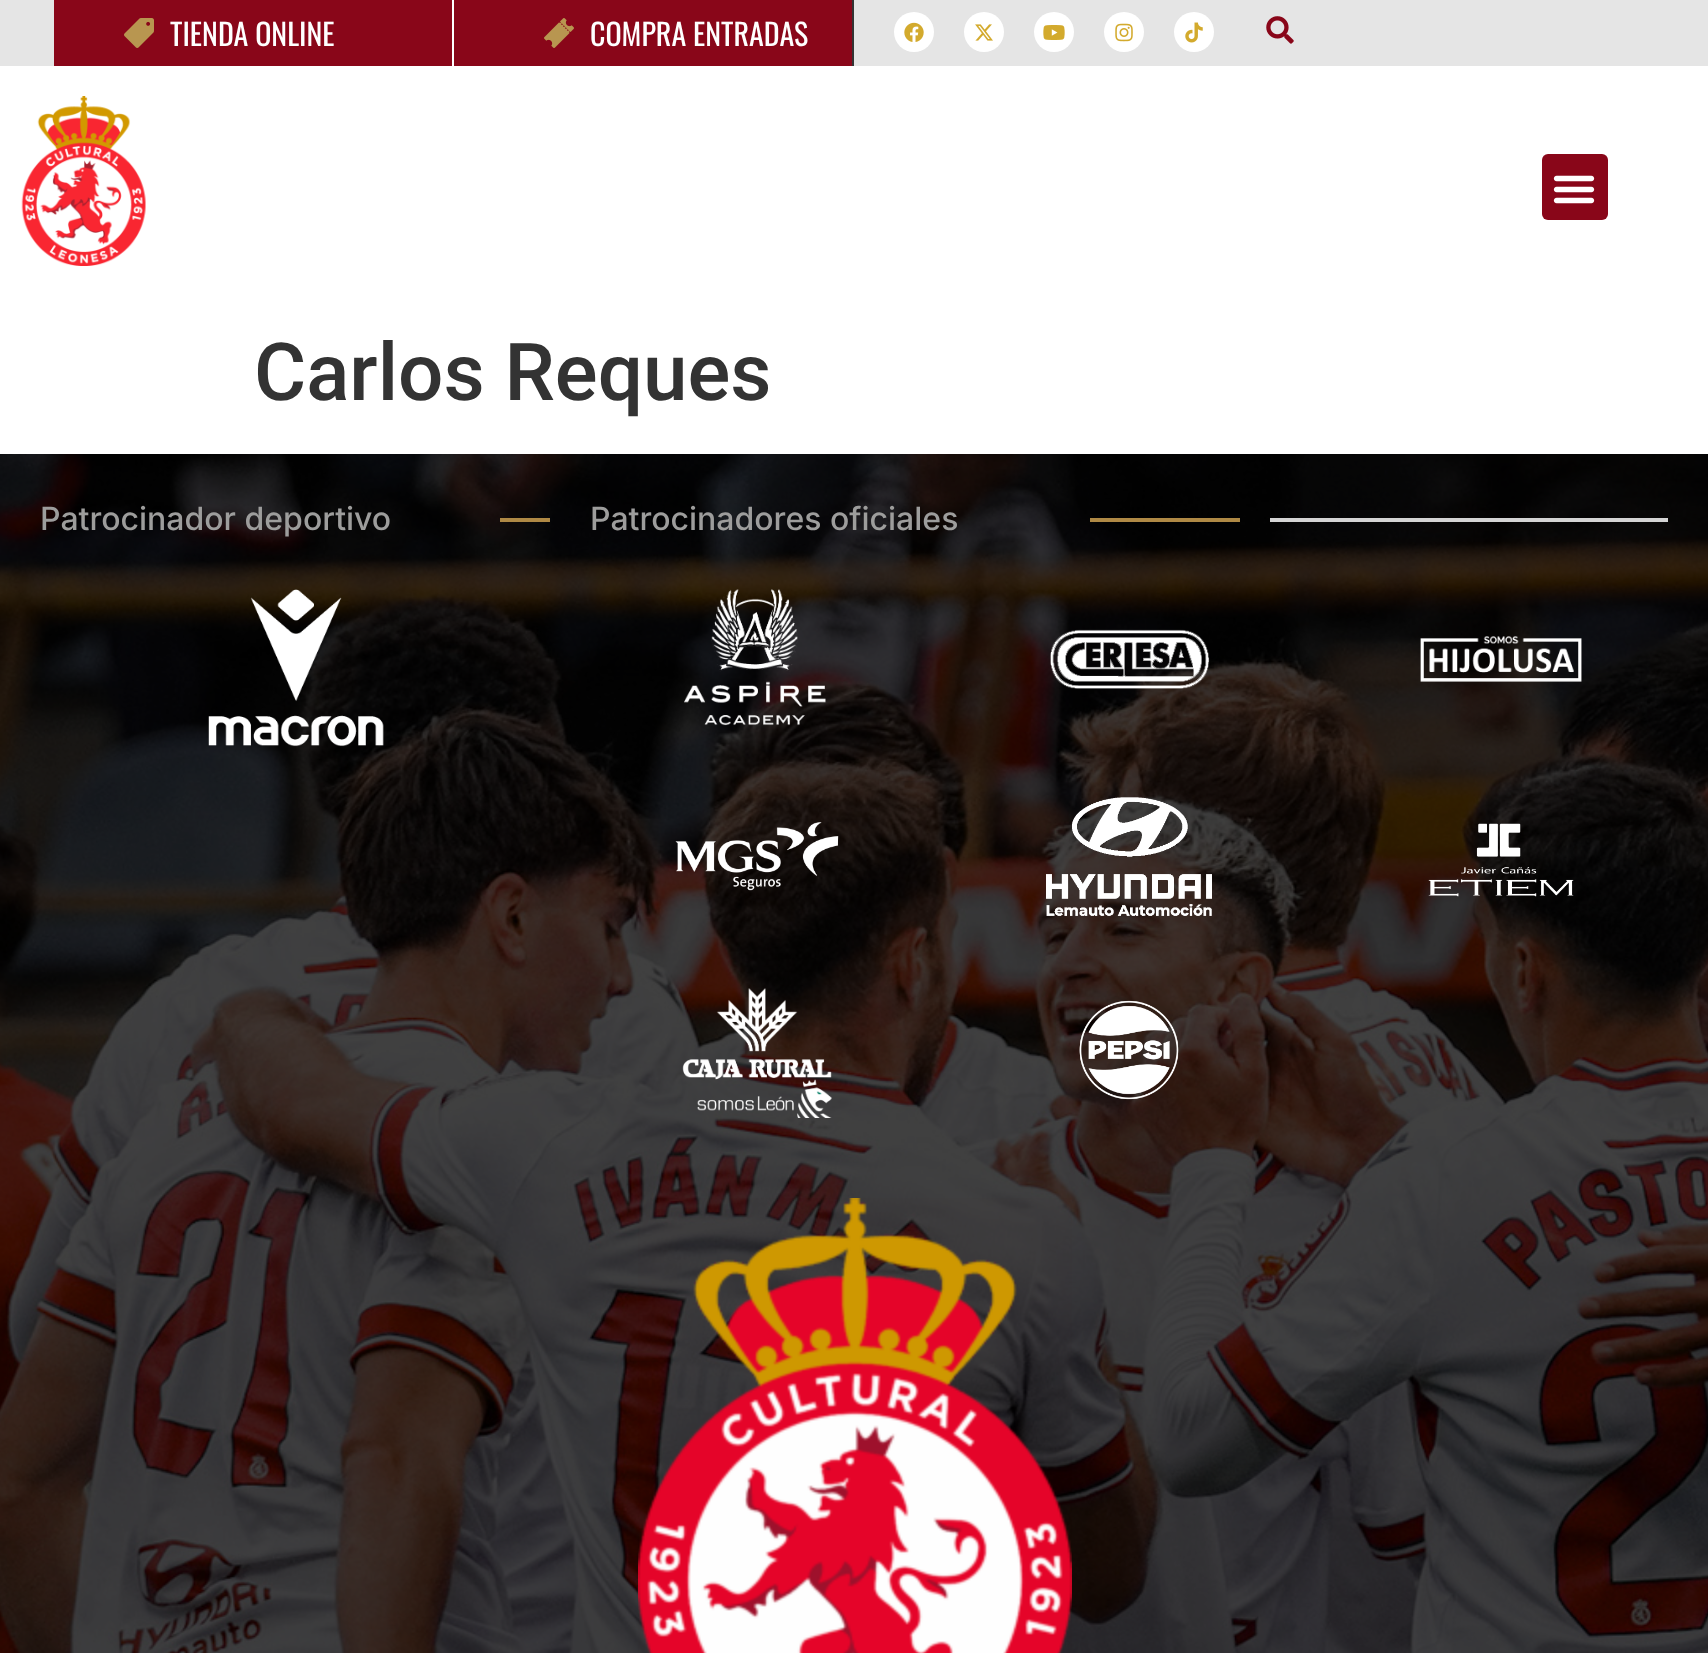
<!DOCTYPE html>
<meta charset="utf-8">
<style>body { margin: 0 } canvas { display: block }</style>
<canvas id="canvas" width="1708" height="1653"></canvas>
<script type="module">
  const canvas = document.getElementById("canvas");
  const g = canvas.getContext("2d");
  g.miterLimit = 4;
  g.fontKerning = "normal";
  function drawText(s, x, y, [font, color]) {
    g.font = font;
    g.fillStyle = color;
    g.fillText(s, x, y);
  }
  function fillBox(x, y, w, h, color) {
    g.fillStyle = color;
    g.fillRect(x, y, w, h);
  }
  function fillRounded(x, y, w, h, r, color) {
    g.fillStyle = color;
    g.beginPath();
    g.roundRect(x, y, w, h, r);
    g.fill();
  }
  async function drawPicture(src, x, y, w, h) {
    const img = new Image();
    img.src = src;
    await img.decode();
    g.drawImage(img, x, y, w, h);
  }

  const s1 = ["30px Oswald", "#FFFFFF"];
  const s2 = ["500 80px Roboto", "#333333"];
  const s3 = ["500 32px Inter", "#9D9D9C"];

  fillBox(0, 0, 1708, 1653, "#FFFFFF");
  fillBox(0, 0, 1708, 66, "#E5E5E5");
  fillBox(54, 0, 398, 66, "#890619");
  fillBox(452, 0, 2, 66, "#FFFFFF");
  await drawPicture("pic1.png", 124, 18, 30, 30);
  drawText("TIENDA ONLINE", 170, 46, s1);
  fillBox(454, 0, 398, 66, "#890619");
  fillBox(852, 0, 2, 66, "#333333");
  await drawPicture("pic2.png", 544, 18, 30, 30);
  drawText("COMPRA ENTRADAS", 590, 46, s1);
  g.beginPath();
  g.arc(914, 32, 20, 0, Math.PI * 2);
  g.fill();
  await drawPicture("pic3.png", 904, 22, 20, 20);
  g.beginPath();
  g.arc(984, 32, 20, 0, Math.PI * 2);
  g.fill();
  await drawPicture("pic4.png", 975, 24, 18, 17);
  g.beginPath();
  g.arc(1054, 32, 20, 0, Math.PI * 2);
  g.fill();
  await drawPicture("pic5.png", 1043, 25, 22, 15);
  g.beginPath();
  g.arc(1124, 32, 20, 0, Math.PI * 2);
  g.fill();
  await drawPicture("pic6.png", 1115, 23, 18, 19);
  g.beginPath();
  g.arc(1194, 32, 20, 0, Math.PI * 2);
  g.fill();
  await drawPicture("pic7.png", 1185, 22, 18, 21);
  await drawPicture("pic8.png", 1266, 16, 28, 28);
  await drawPicture("pic9.png", 21, 96, 125, 170);
  fillRounded(1542, 154, 66, 66, 6, "#890619");
  await drawPicture("pic10.png", 1553, 175, 42, 29);
  drawText("Carlos Reques", 254, 400, s2);
  await drawPicture("pic11.png", 0, 454, 1708, 1199);
  drawText("Patrocinador deportivo", 40, 530, s3);
  fillBox(500, 518, 50, 4, "#AF8945");
  await drawPicture("pic12.png", 208, 589, 176, 158);
  drawText("Patrocinadores oficiales", 590, 530, s3);
  fillBox(1090, 518, 150, 4, "#AF8945");
  fillBox(1270, 518, 398, 4, "#D4D4D4");
  await drawPicture("pic13.png", 684, 589, 142, 137);
  await drawPicture("pic14.png", 1050, 629, 160, 60);
  await drawPicture("pic15.png", 1420, 636, 162, 46);
  await drawPicture("pic16.png", 675, 822, 164, 69);
  await drawPicture("pic17.png", 1046, 797, 166, 119);
  await drawPicture("pic18.png", 1428, 823, 146, 74);
  await drawPicture("pic19.png", 682, 988, 150, 130);
  await drawPicture("pic20.png", 1079, 1000, 100, 100);
  await drawPicture("pic21.png", 638, 1198, 434, 455);
</script>
